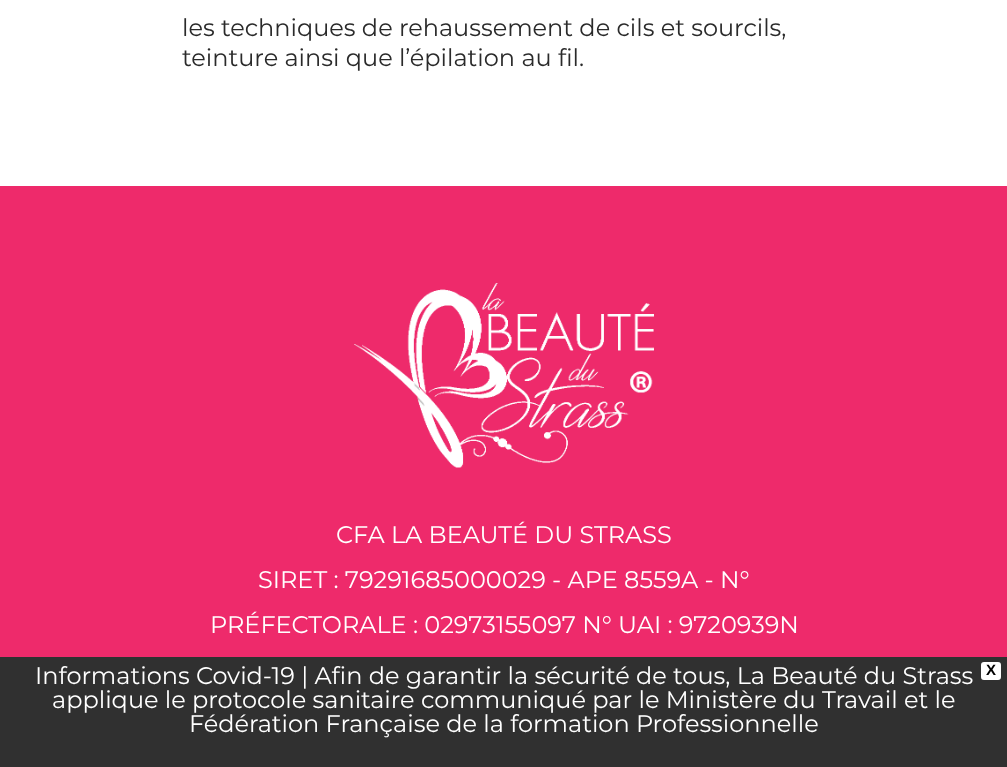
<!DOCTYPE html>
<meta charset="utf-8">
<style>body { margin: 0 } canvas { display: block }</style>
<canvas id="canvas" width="1007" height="767"></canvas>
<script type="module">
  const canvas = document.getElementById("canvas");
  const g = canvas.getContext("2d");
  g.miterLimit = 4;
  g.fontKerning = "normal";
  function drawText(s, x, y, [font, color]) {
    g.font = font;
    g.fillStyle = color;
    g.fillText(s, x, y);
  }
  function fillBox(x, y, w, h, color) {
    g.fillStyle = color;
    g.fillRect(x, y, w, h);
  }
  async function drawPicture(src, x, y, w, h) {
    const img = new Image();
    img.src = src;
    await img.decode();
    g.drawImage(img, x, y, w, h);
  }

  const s1 = ["24px Montserrat", "#2A2A2A"];
  const s2 = ["24px Montserrat", "#FFFFFF"];
  const s3 = ["bold 15px Liberation Sans", "#000000"];

  fillBox(0, 0, 1007, 767, "#FFFFFF");
  drawText("les techniques de rehaussement de cils et sourcils,", 182, 36, s1);
  drawText("teinture ainsi que l’épilation au fil.", 182, 66, s1);
  fillBox(0, 186, 1007, 471, "#EE2A6B");
  await drawPicture("pic1.png", 354, 283, 300, 185);
  drawText("CFA LA BEAUTÉ DU STRASS", 336, 543, s2);
  drawText("SIRET : 79291685000029 - APE 8559A - N°", 258, 588, s2);
  drawText("PRÉFECTORALE : 02973155097 N° UAI : 9720939N", 210, 633, s2);
  fillBox(0, 657, 1007, 110, "#303030");
  drawText("Informations Covid-19 | Afin de garantir la sécurité de tous, La Beauté du Strass", 35, 684, s2);
  drawText("applique le protocole sanitaire communiqué par le Ministère du Travail et le", 52, 708, s2);
  drawText("Fédération Française de la formation Professionnelle", 189, 732, s2);
  g.beginPath();
  g.roundRect(982, 663, 18, 16, 2);
  g.fill();
  g.strokeStyle = "#FFFFFF";
  g.lineWidth = 2;
  g.stroke();
  drawText("X", 986, 675, s3);
</script>
